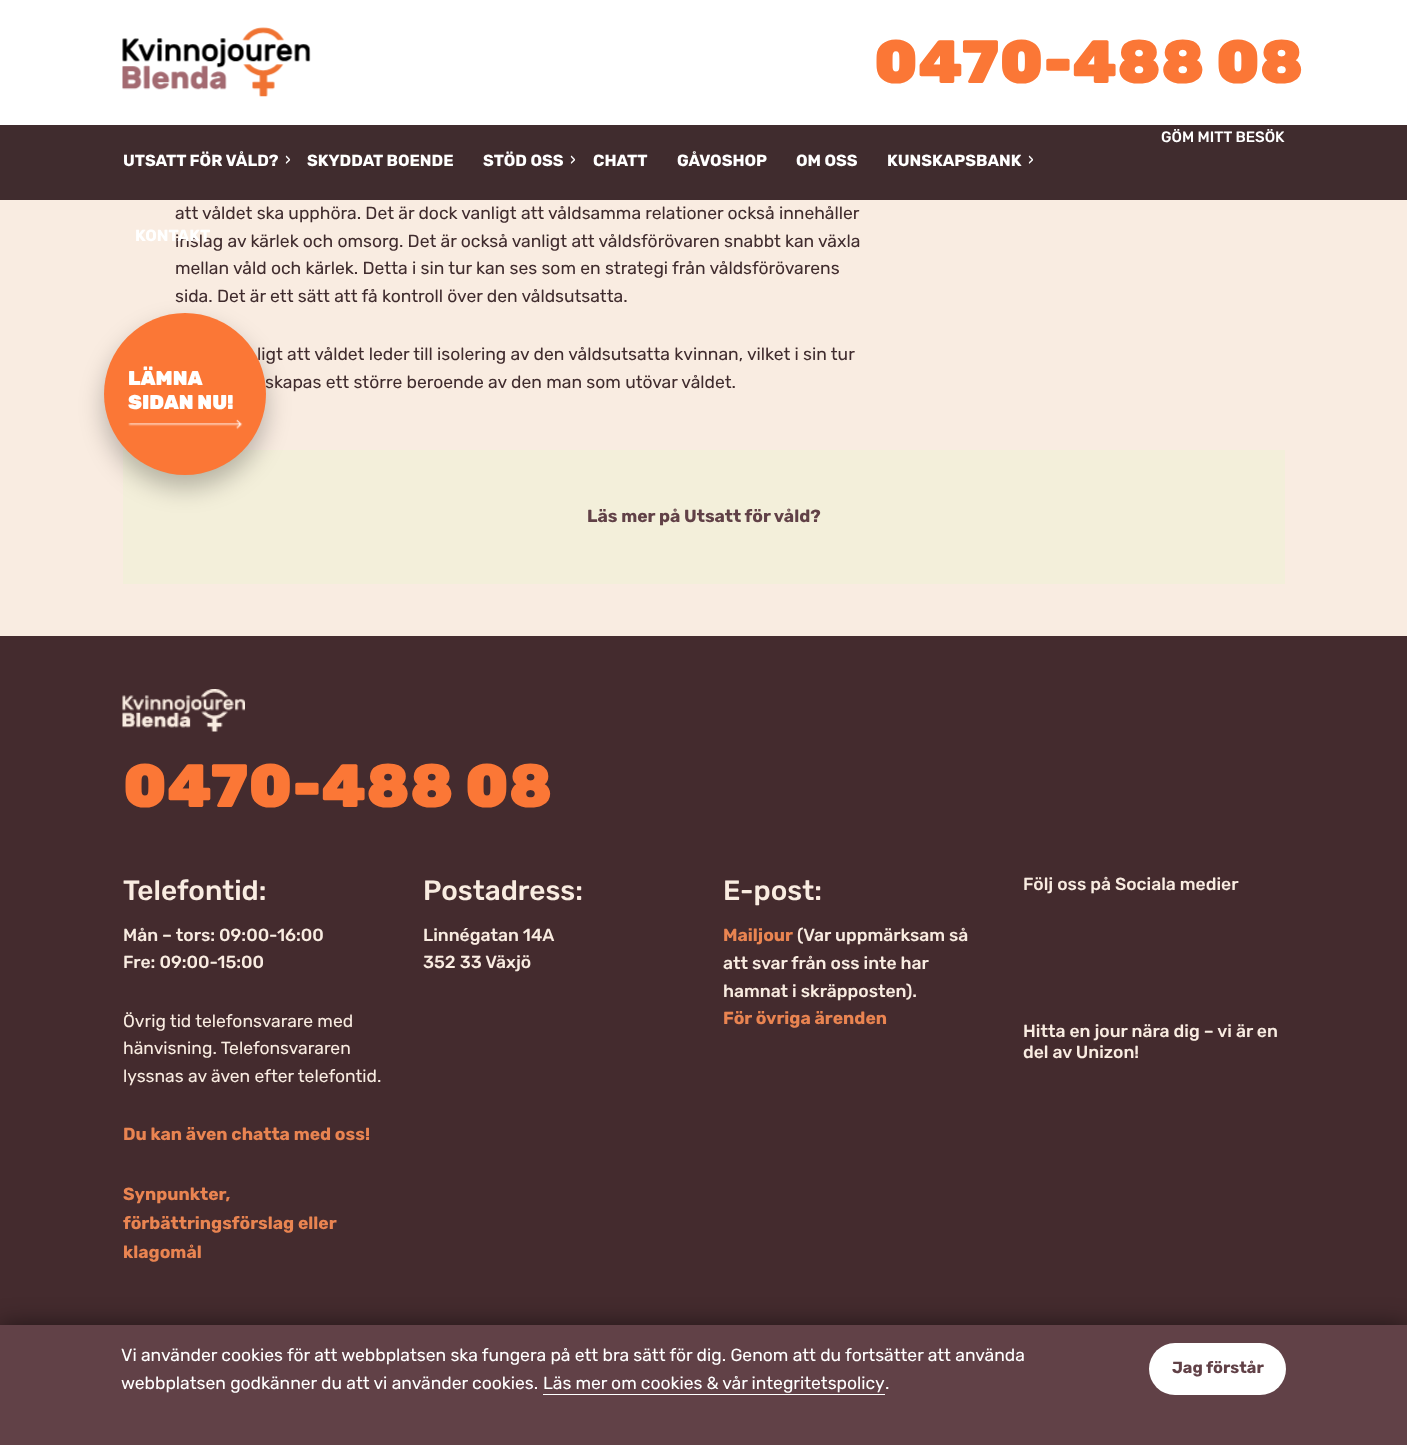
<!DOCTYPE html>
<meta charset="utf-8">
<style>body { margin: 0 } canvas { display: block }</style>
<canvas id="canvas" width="1407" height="1445"></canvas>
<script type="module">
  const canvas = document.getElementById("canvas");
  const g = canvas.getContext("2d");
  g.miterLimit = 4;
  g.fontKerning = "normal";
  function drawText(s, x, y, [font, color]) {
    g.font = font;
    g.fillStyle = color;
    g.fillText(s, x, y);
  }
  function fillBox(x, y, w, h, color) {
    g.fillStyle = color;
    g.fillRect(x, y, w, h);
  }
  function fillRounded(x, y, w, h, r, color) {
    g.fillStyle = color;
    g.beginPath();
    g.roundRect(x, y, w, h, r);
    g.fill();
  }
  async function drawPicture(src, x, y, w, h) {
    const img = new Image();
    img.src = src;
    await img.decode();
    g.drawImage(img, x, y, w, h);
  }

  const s1 = ["900 61.25px Rubik", "#FB7736"];
  const s2 = ["17.5px Rubik", "#402C2E"];
  const s3 = ["900 20px Rubik", "#FFFFFF"];
  const s4 = ["500 15px Rubik", "#FFFFFF"];
  const s5 = ["bold 16.25px Rubik", "#FFFFFF"];
  const s6 = ["16.25px Rubik", "#FFFFFF"];
  const s7 = ["bold 17.5px Rubik", "#614147"];
  const s8 = ["500 28px Rubik", "#F9ECE1"];
  const s9 = ["500 17.5px Rubik", "#F9ECE1"];
  const s10 = ["17.5px Rubik", "#F9ECE1"];
  const s11 = ["bold 17.5px Rubik", "#E98451"];
  const s12 = ["17.5px Rubik", "#FFFFFF"];
  const s13 = ["bold 16.25px Rubik", "#614147"];

  fillBox(0, 0, 1407, 1445, "#F9ECE1");
  fillBox(0, 0, 1407, 125, "#FFFFFF");
  await drawPicture("pic1.png", 122, 27, 189, 70);
  drawText("0470-488 08", 874, 83, s1);
  fillBox(123, 450, 1162, 134, "#F3EFDA");
  g.fillStyle = "rgba(0, 0, 0, 0.25)";
  g.filter = "blur(12.5px)";
  g.beginPath();
  g.roundRect(104, 325, 162, 163, 81);
  g.fill();
  g.filter = "none";
  drawText("ligt att våldet leder till isolering av den våldsutsatta kvinnan, vilket i sin tur", 257, 360, s2);
  drawText("skapas ett större beroende av den man som utövar våldet.", 265, 388, s2);
  g.fillStyle = "#FB7736";
  g.beginPath();
  g.arc(185, 394, 81, 0, Math.PI * 2);
  g.fill();
  drawText("LÄMNA", 128, 385, s3);
  drawText("SIDAN NU!", 128, 409, s3);
  await drawPicture("pic2.png", 128, 419, 115, 11);
  fillBox(0, 125, 1407, 75, "#402C2E");
  drawText("GÖM MITT BESÖK", 1161, 142, s4);
  drawText("UTSATT FÖR VÅLD?", 123, 166, s5);
  drawText("›", 285, 165, s6);
  drawText("SKYDDAT BOENDE", 307, 166, s5);
  drawText("STÖD OSS", 483, 166, s5);
  drawText("›", 570, 165, s6);
  drawText("CHATT", 593, 166, s5);
  drawText("GÅVOSHOP", 677, 166, s5);
  drawText("OM OSS", 796, 166, s5);
  drawText("KUNSKAPSBANK", 887, 166, s5);
  drawText("›", 1028, 165, s6);
  drawText("inslag av kärlek och omsorg. Det är också vanligt att våldsförövaren snabbt kan växla", 175, 247, s2);
  drawText("KONTAKT", 135, 241, s5);
  drawText("att våldet ska upphöra. Det är dock vanligt att våldsamma relationer också innehåller", 175, 219, s2);
  drawText("mellan våld och kärlek. Detta i sin tur kan ses som en strategi från våldsförövarens", 175, 274, s2);
  drawText("sida. Det är ett sätt att få kontroll över den våldsutsatta.", 175, 302, s2);
  drawText("Läs mer på Utsatt för våld?", 587, 522, s7);
  fillBox(0, 636, 1407, 689, "#442B2E");
  await drawPicture("pic3.png", 122, 689, 123, 43);
  drawText("0470-488 08", 123, 807, s1);
  drawText("Telefontid:", 123, 900, s8);
  drawText("Mån – tors: 09:00-16:00", 123, 941, s9);
  drawText("Fre: 09:00-15:00", 123, 968, s9);
  drawText("Övrig tid telefonsvarare med", 123, 1027, s10);
  drawText("hänvisning. Telefonsvararen", 123, 1054, s10);
  drawText("lyssnas av även efter telefontid.", 123, 1082, s10);
  drawText("Du kan även chatta med oss!", 123, 1140, s11);
  drawText("Synpunkter,", 123, 1200, s11);
  drawText("förbättringsförslag eller", 123, 1229, s11);
  drawText("klagomål", 123, 1258, s11);
  drawText("Postadress:", 423, 900, s8);
  drawText("Linnégatan 14A", 423, 941, s9);
  drawText("352 33 Växjö", 423, 968, s9);
  drawText("E-post:", 723, 900, s8);
  drawText("Mailjour", 723, 941, s11);
  drawText("(Var uppmärksam så", 797, 941, s9);
  drawText("att svar från oss inte har", 723, 969, s9);
  drawText("hamnat i skräpposten).", 723, 997, s9);
  drawText("För övriga ärenden", 723, 1024, s11);
  drawText("Följ oss på Sociala medier", 1023, 890, s9);
  drawText("Hitta en jour nära dig – vi är en", 1023, 1037, s9);
  drawText("del av Unizon!", 1023, 1058, s9);
  g.fillStyle = "rgba(0, 0, 0, 0.5)";
  g.filter = "blur(12.5px)";
  g.beginPath();
  g.rect(0, 1325, 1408, 120);
  g.fill();
  g.filter = "none";
  fillBox(0, 1325, 1407, 120, "#614147");
  drawText("Vi använder cookies för att webbplatsen ska fungera på ett bra sätt för dig. Genom att du fortsätter att använda", 121, 1361, s12);
  drawText("webbplatsen godkänner du att vi använder cookies.", 121, 1389, s12);
  g.wordSpacing = "-0.25px";
  drawText("Läs mer om cookies & vår integritetspolicy", 543, 1389, s12);
  fillBox(543, 1394, 342, 1, "#FFFFFF");
  g.wordSpacing = "0px";
  drawText(".", 885, 1389, s12);
  fillRounded(1149, 1343, 137, 52, 26, "#FFFFFF");
  drawText("Jag förstår", 1172, 1373, s13);
</script>
